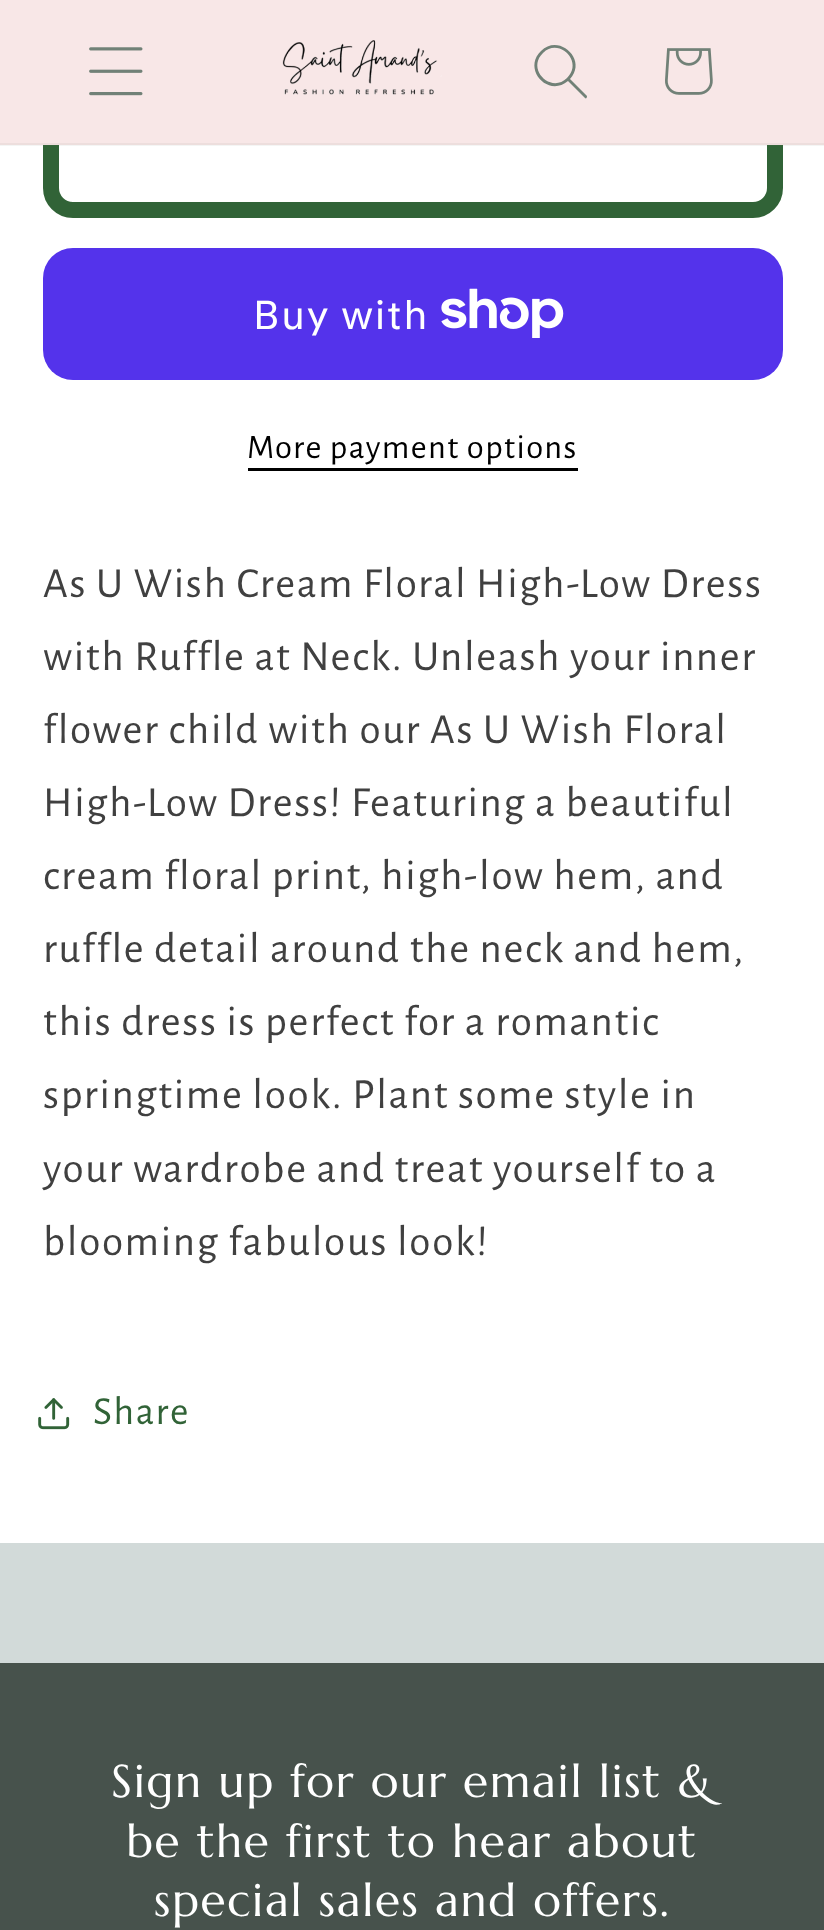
<!DOCTYPE html>
<meta charset="utf-8">
<style>body { margin: 0 } canvas { display: block }</style>
<canvas id="canvas" width="824" height="1930"></canvas>
<script type="module">
  const canvas = document.getElementById("canvas");
  const g = canvas.getContext("2d");
  g.miterLimit = 4;
  g.fontKerning = "normal";
  function drawText(s, x, y, [font, color]) {
    g.font = font;
    g.fillStyle = color;
    g.fillText(s, x, y);
  }
  function fillBox(x, y, w, h, color) {
    g.fillStyle = color;
    g.fillRect(x, y, w, h);
  }
  function fillRounded(x, y, w, h, r, color) {
    g.fillStyle = color;
    g.beginPath();
    g.roundRect(x, y, w, h, r);
    g.fill();
  }
  async function drawPicture(src, x, y, w, h) {
    const img = new Image();
    img.src = src;
    await img.decode();
    g.drawImage(img, x, y, w, h);
  }

  const s1 = ["40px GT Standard", "#FFFFFF"];
  const s2 = ["34.5px Alegreya Sans", "#000000"];
  const s3 = ["43.1px Alegreya Sans", "#404040"];
  const s4 = ["40px Alegreya Sans", "#316337"];
  const s5 = ["46px Marcellus", "#FFFFFF"];

  fillBox(0, 0, 824, 1930, "#D2DAD9");
  fillBox(0, 145, 824, 1398, "#FFFFFF");
  g.beginPath();
  g.roundRect(51, 68, 724, 142, 22);
  g.strokeStyle = "#316337";
  g.lineWidth = 16;
  g.stroke();
  fillBox(0, 0, 824, 145, "#F8E7E7");
  fillBox(0, 143, 824, 3, "rgba(113, 129, 119, 0.08)");
  await drawPicture("pic1.png", 89, 47, 54, 49);
  await drawPicture("pic2.png", 282, 40, 160, 55);
  g.fillStyle = "#718177";
  g.beginPath();
  g.moveTo(567, 78);
  g.bezierCurveTo(551, 94, 526, 69, 543, 53);
  g.bezierCurveTo(559, 37, 584, 62, 567, 78);
  g.moveTo(568, 81);
  g.bezierCurveTo(548, 98, 522, 69, 541, 51);
  g.bezierCurveTo(559, 33, 588, 60, 570, 79);
  g.lineTo(587, 96);
  g.bezierCurveTo(587, 98, 586, 99, 585, 98);
  g.closePath();
  g.fill("evenodd");
  await drawPicture("pic3.png", 665, 48, 48, 47);
  fillRounded(43, 248, 740, 132, 30, "#5433EB");
  g.letterSpacing = "1.7px";
  drawText("Buy with", 253, 329, s1);
  await drawPicture("pic4.png", 441, 288, 123, 50);
  g.letterSpacing = "1.4px";
  drawText("More payment options", 247, 458, s2);
  fillBox(248, 468, 330, 3, "#000000");
  g.letterSpacing = "1.7px";
  drawText("As U Wish Cream Floral High-Low Dress", 43, 597, s3);
  drawText("with Ruffle at Neck. Unleash your inner", 43, 670, s3);
  drawText("flower child with our As U Wish Floral", 43, 743, s3);
  drawText("High-Low Dress! Featuring a beautiful", 43, 816, s3);
  drawText("cream floral print, high-low hem, and", 43, 889, s3);
  drawText("ruffle detail around the neck and hem,", 43, 962, s3);
  drawText("this dress is perfect for a romantic", 43, 1035, s3);
  drawText("springtime look. Plant some style in", 43, 1108, s3);
  drawText("your wardrobe and treat yourself to a", 43, 1182, s3);
  drawText("blooming fabulous look!", 43, 1255, s3);
  await drawPicture("pic5.png", 38, 1398, 32, 32);
  drawText("Share", 93, 1424, s4);
  fillBox(0, 1663, 824, 267, "#47524C");
  drawText("Sign up for our email list &", 111, 1797, s5);
  drawText("be the first to hear about", 126, 1857, s5);
  drawText("special sales and offers.", 154, 1916, s5);
</script>
